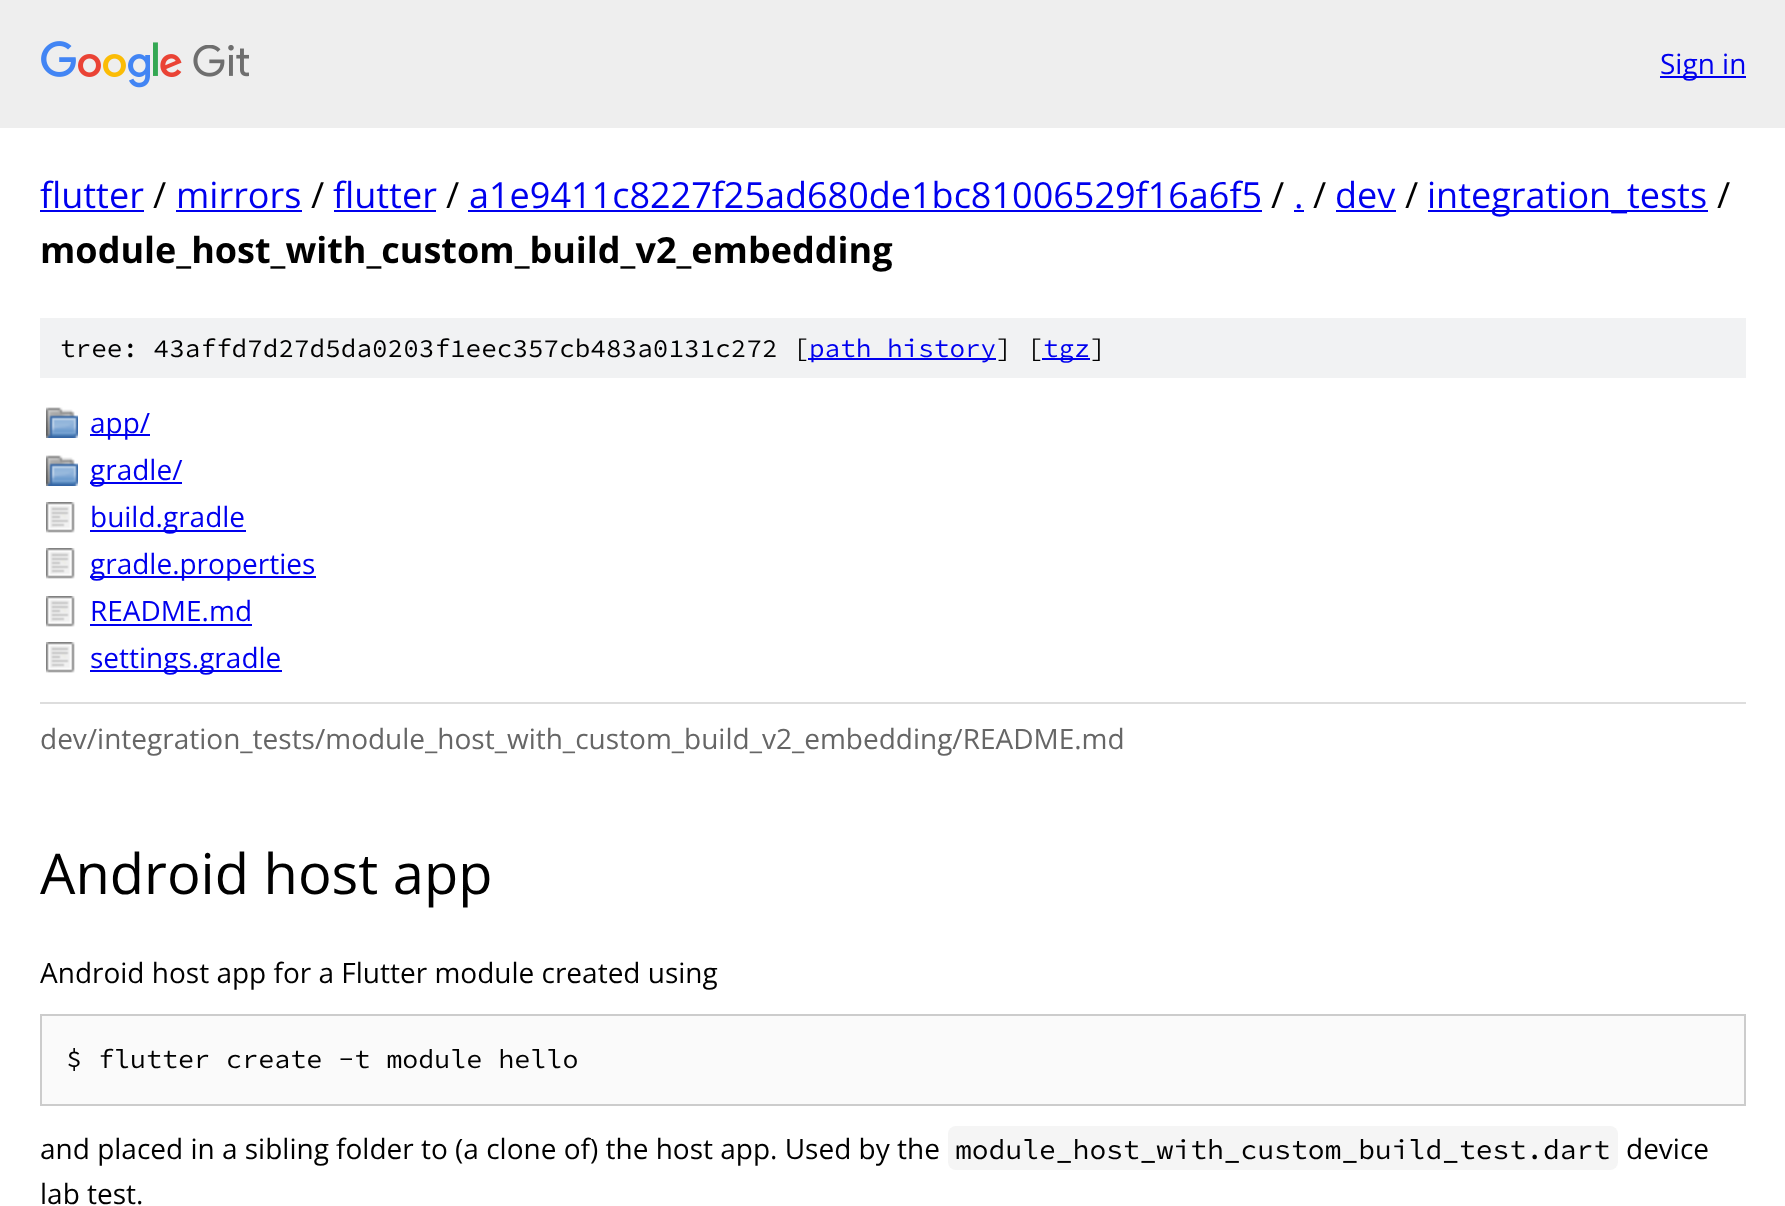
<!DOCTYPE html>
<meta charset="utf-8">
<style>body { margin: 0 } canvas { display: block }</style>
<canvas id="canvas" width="1785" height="1206"></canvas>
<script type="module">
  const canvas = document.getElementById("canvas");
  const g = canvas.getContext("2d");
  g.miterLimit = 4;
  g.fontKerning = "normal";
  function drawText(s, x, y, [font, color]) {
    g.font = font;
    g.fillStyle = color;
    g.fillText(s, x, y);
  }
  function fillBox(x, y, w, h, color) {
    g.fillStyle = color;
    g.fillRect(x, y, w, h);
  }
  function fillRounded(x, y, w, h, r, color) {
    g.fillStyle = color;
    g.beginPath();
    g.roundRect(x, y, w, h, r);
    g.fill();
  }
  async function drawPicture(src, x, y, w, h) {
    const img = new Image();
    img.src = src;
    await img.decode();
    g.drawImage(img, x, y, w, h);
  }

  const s1 = ["28px Open Sans", "#0000EE"];
  const s2 = ["36px Open Sans", "#0000EE"];
  const s3 = ["36px Open Sans", "#000000"];
  const s4 = ["bold 36px Open Sans", "#000000"];
  const s5 = ["200 26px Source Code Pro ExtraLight", "#000000"];
  const s6 = ["200 26px Source Code Pro ExtraLight", "#0000EE"];
  const s7 = ["28px Open Sans", "#666666"];
  const s8 = ["56px Open Sans", "#000000"];
  const s9 = ["28px Open Sans", "#000000"];
  const s10 = ["200 26.7px Source Code Pro ExtraLight", "#000000"];
  const s11 = ["200 28px Source Code Pro ExtraLight", "#000000"];

  fillBox(0, 0, 1785, 1206, "#FFFFFF");
  fillBox(0, 0, 1785, 128, "#EEEEEE");
  await drawPicture("pic1.png", 41, 41, 208, 47);
  fillBox(1660, 76, 86, 2, "#0000EE");
  drawText("Sign in", 1660, 74, s1);
  drawText("flutter", 40, 208, s2);
  fillBox(40, 210, 104, 2, "#0000EE");
  drawText("/", 153, 208, s3);
  drawText("mirrors", 176, 208, s2);
  fillBox(176, 210, 126, 2, "#0000EE");
  drawText("/", 311, 208, s3);
  drawText("flutter", 333, 208, s2);
  fillBox(334, 210, 102, 2, "#0000EE");
  drawText("/", 446, 208, s3);
  drawText("a1e9411c8227f25ad680de1bc81006529f16a6f5", 469, 208, s2);
  fillBox(468, 210, 794, 2, "#0000EE");
  drawText("/", 1271, 208, s3);
  drawText(".", 1294, 208, s2);
  fillBox(1294, 210, 10, 2, "#0000EE");
  drawText("/", 1313, 208, s3);
  drawText("dev", 1335, 208, s2);
  fillBox(1336, 210, 60, 2, "#0000EE");
  drawText("/", 1405, 208, s3);
  fillBox(1428, 210, 280, 2, "#0000EE");
  drawText("integration_tests", 1427, 208, s2);
  drawText("/", 1717, 208, s3);
  drawText("module_host_with_custom_build_v2_embedding", 40, 263, s4);
  fillBox(40, 318, 1706, 60, "#F1F2F3");
  drawText("tree: 43affd7d27d5da0203f1eec357cb483a0131c272 [", 60, 357, s5);
  fillBox(808, 358, 188, 2, "#0000EE");
  drawText("path history", 809, 357, s6);
  drawText("] [", 996, 357, s5);
  fillBox(1042, 358, 48, 2, "#0000EE");
  drawText("tgz", 1043, 357, s6);
  drawText("]", 1090, 357, s5);
  await drawPicture("pic2.png", 46, 407, 32, 31);
  fillBox(90, 434, 60, 2, "#0000EE");
  drawText("app/", 90, 433, s1);
  await drawPicture("pic2.png", 46, 455, 32, 31);
  fillBox(90, 482, 92, 2, "#0000EE");
  drawText("gradle/", 90, 480, s1);
  await drawPicture("pic3.png", 46, 502, 29, 31);
  fillBox(90, 530, 156, 2, "#0000EE");
  drawText("build.gradle", 90, 527, s1);
  await drawPicture("pic3.png", 46, 548, 29, 31);
  fillBox(90, 576, 226, 2, "#0000EE");
  drawText("gradle.properties", 90, 574, s1);
  await drawPicture("pic3.png", 46, 596, 29, 31);
  drawText("README.md", 90, 621, s1);
  fillBox(90, 624, 162, 2, "#0000EE");
  await drawPicture("pic3.png", 46, 642, 29, 31);
  fillBox(90, 670, 192, 2, "#0000EE");
  drawText("settings.gradle", 90, 668, s1);
  fillBox(40, 702, 1706, 2, "#DDDDDD");
  drawText("dev/integration_tests/module_host_with_custom_build_v2_embedding/README.md", 40, 749, s7);
  drawText("Android host app", 40, 894, s8);
  drawText("Android host app for a Flutter module created using", 40, 983, s9);
  g.fillStyle = "#FAFAFA";
  g.beginPath();
  g.rect(41, 1015, 1704, 90);
  g.fill();
  g.strokeStyle = "#CCCCCC";
  g.lineWidth = 2;
  g.stroke();
  drawText("$ flutter create -t module hello", 66, 1068, s10);
  drawText("and placed in a sibling folder to (a clone of) the host app. Used by the", 40, 1159, s9);
  fillRounded(948, 1126, 670, 44, 8, "#F5F5F5");
  drawText("module_host_with_custom_build_test.dart", 955, 1159, s11);
  drawText("device", 1626, 1159, s9);
  drawText("lab test.", 40, 1204, s9);
</script>
